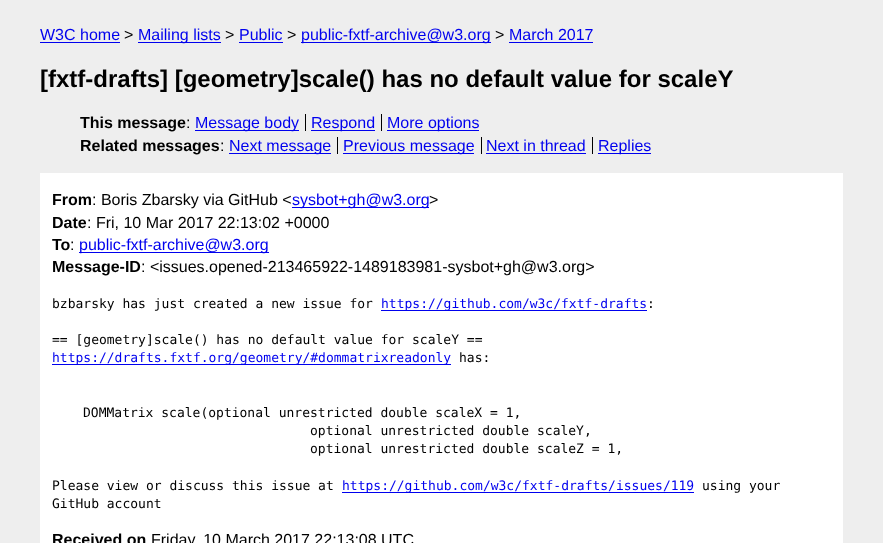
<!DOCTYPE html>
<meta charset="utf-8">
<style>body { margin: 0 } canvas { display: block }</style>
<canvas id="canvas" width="883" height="543"></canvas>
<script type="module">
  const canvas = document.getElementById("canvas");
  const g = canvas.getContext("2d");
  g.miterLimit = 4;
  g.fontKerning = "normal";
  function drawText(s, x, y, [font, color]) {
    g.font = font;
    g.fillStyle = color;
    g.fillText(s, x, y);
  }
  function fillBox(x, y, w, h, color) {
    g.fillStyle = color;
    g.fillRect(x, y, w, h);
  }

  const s1 = ["16px Liberation Sans", "#0000EE"];
  const s2 = ["16px Liberation Sans", "#000000"];
  const s3 = ["bold 24px Liberation Sans", "#000000"];
  const s4 = ["bold 16px Liberation Sans", "#000000"];
  const s5 = ["13px DejaVu Sans Mono", "#000000"];
  const s6 = ["13px DejaVu Sans Mono", "#0000EE"];

  fillBox(0, 0, 883, 543, "#EEEEEE");
  drawText("W3C home", 40, 40, s1);
  fillBox(40, 42, 80, 1, "#0000EE");
  drawText(">", 124, 40, s2);
  fillBox(138, 42, 83, 1, "#0000EE");
  drawText("Mailing lists", 138, 40, s1);
  drawText(">", 225, 40, s2);
  drawText("Public", 239, 40, s1);
  fillBox(239, 42, 44, 1, "#0000EE");
  drawText(">", 287, 40, s2);
  fillBox(301, 42, 190, 1, "#0000EE");
  drawText("public-fxtf-archive@w3.org", 301, 40, s1);
  drawText(">", 495, 40, s2);
  drawText("March 2017", 509, 40, s1);
  fillBox(509, 42, 84, 1, "#0000EE");
  drawText("[fxtf-drafts] [geometry]scale() has no default value for scaleY", 40, 87, s3);
  drawText("This message", 80, 128, s4);
  drawText(":", 186, 128, s2);
  fillBox(195, 130, 104, 1, "#0000EE");
  drawText("Message body", 195, 128, s1);
  fillBox(311, 130, 64, 1, "#0000EE");
  drawText("Respond", 311, 128, s1);
  fillBox(305, 114, 1, 17, "#000000");
  fillBox(387, 130, 92, 1, "#0000EE");
  drawText("More options", 387, 128, s1);
  fillBox(381, 114, 1, 17, "#000000");
  drawText("Related messages", 80, 151, s4);
  drawText(":", 220, 151, s2);
  fillBox(229, 153, 102, 1, "#0000EE");
  drawText("Next message", 229, 151, s1);
  fillBox(343, 153, 131, 1, "#0000EE");
  drawText("Previous message", 343, 151, s1);
  fillBox(337, 137, 1, 17, "#000000");
  drawText("Next in thread", 486, 151, s1);
  fillBox(481, 137, 1, 17, "#000000");
  fillBox(592, 137, 1, 17, "#000000");
  fillBox(486, 153, 100, 1, "#0000EE");
  fillBox(598, 153, 53, 1, "#0000EE");
  drawText("Replies", 598, 151, s1);
  fillBox(40, 173, 803, 370, "#FFFFFF");
  drawText("From", 52, 205, s4);
  drawText(": Boris Zbarsky via GitHub <", 92, 205, s2);
  fillBox(292, 207, 137, 1, "#0000EE");
  drawText("sysbot+gh@w3.org", 292, 205, s1);
  drawText(">", 429, 205, s2);
  drawText("Date", 52, 228, s4);
  drawText(": Fri, 10 Mar 2017 22:13:02 +0000", 87, 228, s2);
  drawText("To", 52, 250, s4);
  drawText(":", 70, 250, s2);
  fillBox(79, 252, 190, 1, "#0000EE");
  drawText("public-fxtf-archive@w3.org", 79, 250, s1);
  drawText("Message-ID", 52, 272, s4);
  drawText(": <issues.opened-213465922-1489183981-sysbot+gh@w3.org>", 141, 272, s2);
  drawText("bzbarsky has just created a new issue for", 52, 308, s5);
  fillBox(381, 310, 266, 1, "#0000EE");
  drawText("https://github.com/w3c/fxtf-drafts", 381, 308, s6);
  drawText(":", 647, 308, s5);
  drawText("== [geometry]scale() has no default value for scaleY ==", 52, 344, s5);
  fillBox(52, 364, 399, 1, "#0000EE");
  drawText("https://drafts.fxtf.org/geometry/#dommatrixreadonly", 52, 362, s6);
  drawText("has:", 459, 362, s5);
  drawText("DOMMatrix scale(optional unrestricted double scaleX = 1,", 83, 417, s5);
  drawText("optional unrestricted double scaleY,", 310, 435, s5);
  drawText("optional unrestricted double scaleZ = 1,", 310, 453, s5);
  drawText("Please view or discuss this issue at", 52, 490, s5);
  fillBox(342, 492, 352, 1, "#0000EE");
  drawText("https://github.com/w3c/fxtf-drafts/issues/119", 342, 490, s6);
  drawText("using your", 702, 490, s5);
  drawText("GitHub account", 52, 508, s5);
  drawText("Received on", 52, 545, s4);
  drawText("Friday, 10 March 2017 22:13:08 UTC", 151, 545, s2);
</script>
